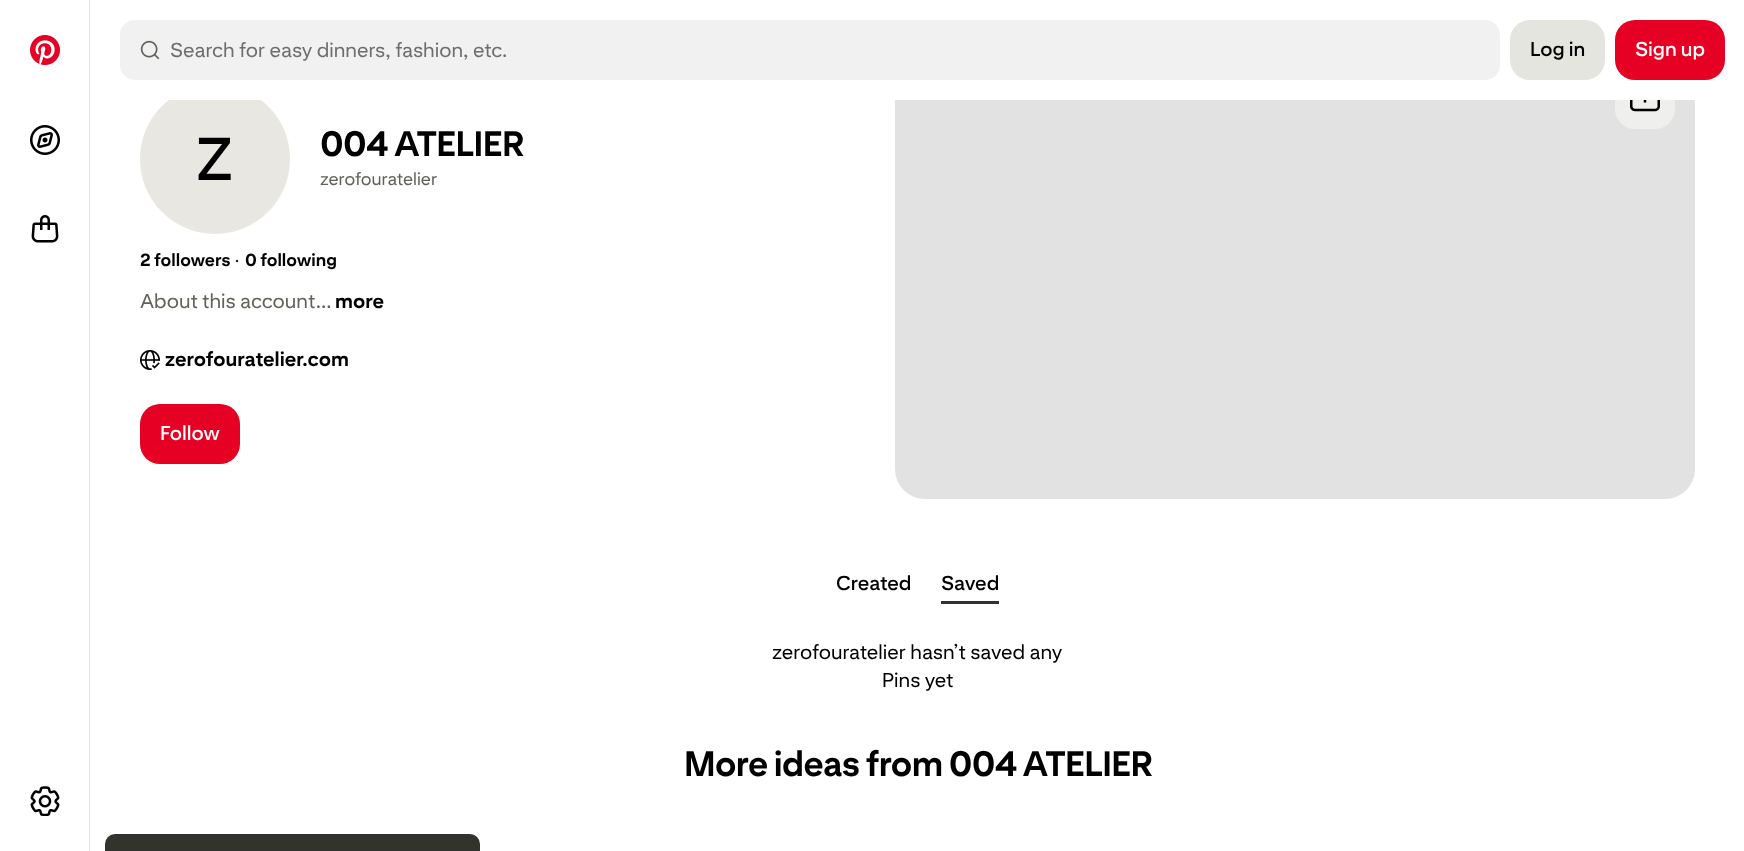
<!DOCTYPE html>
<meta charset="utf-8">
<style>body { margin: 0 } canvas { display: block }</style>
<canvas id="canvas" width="1744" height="851"></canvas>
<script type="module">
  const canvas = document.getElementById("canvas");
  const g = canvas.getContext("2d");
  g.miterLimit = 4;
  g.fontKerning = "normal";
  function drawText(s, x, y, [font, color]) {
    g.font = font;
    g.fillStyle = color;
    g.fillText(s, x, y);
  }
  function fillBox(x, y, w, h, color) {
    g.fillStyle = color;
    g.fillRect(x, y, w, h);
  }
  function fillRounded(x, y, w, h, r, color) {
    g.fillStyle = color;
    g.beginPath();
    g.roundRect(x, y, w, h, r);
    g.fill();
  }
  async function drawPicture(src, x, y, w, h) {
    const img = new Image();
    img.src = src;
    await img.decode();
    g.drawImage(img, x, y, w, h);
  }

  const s1 = ["20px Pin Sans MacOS", "#6E6E6E"];
  const s2 = ["500 20px Pin Sans MacOS", "#000000"];
  const s3 = ["500 20px Pin Sans MacOS", "#FFFFFF"];
  const s4 = ["500 60px Pin Sans MacOS", "#000000"];
  const s5 = ["bold 35px Pin Sans MacOS", "#000000"];
  const s6 = ["17.5px Pin Sans MacOS", "#62625B"];
  const s7 = ["bold 17.5px Pin Sans MacOS", "#000000"];
  const s8 = ["17.5px Pin Sans MacOS", "#000000"];
  const s9 = ["20px Pin Sans MacOS", "#62625B"];
  const s10 = ["bold 20px Pin Sans MacOS", "#000000"];
  const s11 = ["20px Pin Sans MacOS", "#000000"];

  fillBox(0, 0, 1744, 851, "#FFFFFF");
  fillBox(89, 0, 1, 851, "#E5E5E0");
  await drawPicture("pic1.png", 30, 35, 30, 30);
  await drawPicture("pic2.png", 30, 125, 30, 30);
  await drawPicture("pic3.png", 31, 215, 28, 28);
  await drawPicture("pic4.png", 30, 786, 30, 30);
  g.fillStyle = "#E8E7E1";
  g.beginPath();
  g.arc(215, 159, 75, 0, Math.PI * 2);
  g.fill();
  fillRounded(895, 49, 800, 450, 30, "#E2E2E2");
  fillRounded(1615, 69, 60, 60, 20, "#EFEFEE");
  fillBox(169, 49, 1526, 51, "#FFFFFF");
  fillRounded(120, 20, 1380, 60, 15, "#F1F1F1");
  await drawPicture("pic5.png", 140, 40, 20, 20);
  drawText("Search for easy dinners, fashion, etc.", 170, 57, s1);
  fillRounded(1510, 20, 95, 60, 20, "#E5E5E0");
  drawText("Log in", 1530, 56, s2);
  fillRounded(1615, 20, 110, 60, 20, "#E60023");
  drawText("Sign up", 1635, 56, s3);
  drawText("Z", 196, 180, s4);
  g.letterSpacing = "-0.6px";
  drawText("004 ATELIER", 320, 156, s5);
  g.letterSpacing = "0px";
  drawText("zerofouratelier", 320, 185, s6);
  drawText("2 followers", 140, 266, s7);
  drawText("·", 235, 266, s8);
  drawText("0 following", 245, 266, s7);
  drawText("About this account...", 140, 308, s9);
  drawText("more", 335, 308, s10);
  await drawPicture("pic6.png", 140, 350, 20, 20);
  drawText("zerofouratelier.com", 165, 366, s10);
  fillRounded(140, 404, 100, 60, 20, "#E60023");
  drawText("Follow", 160, 440, s3);
  await drawPicture("pic7.png", 1630, 100, 30, 12);
  drawText("Created", 836, 590, s2);
  drawText("Saved", 941, 590, s2);
  fillBox(941, 601, 58, 3, "#33332E");
  drawText("zerofouratelier hasn’t saved any", 772, 659, s11);
  drawText("Pins yet", 882, 687, s11);
  g.letterSpacing = "-0.6px";
  drawText("More ideas from 004 ATELIER", 684, 776, s5);
  fillRounded(105, 834, 375, 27, 10, "#33332E");
</script>
